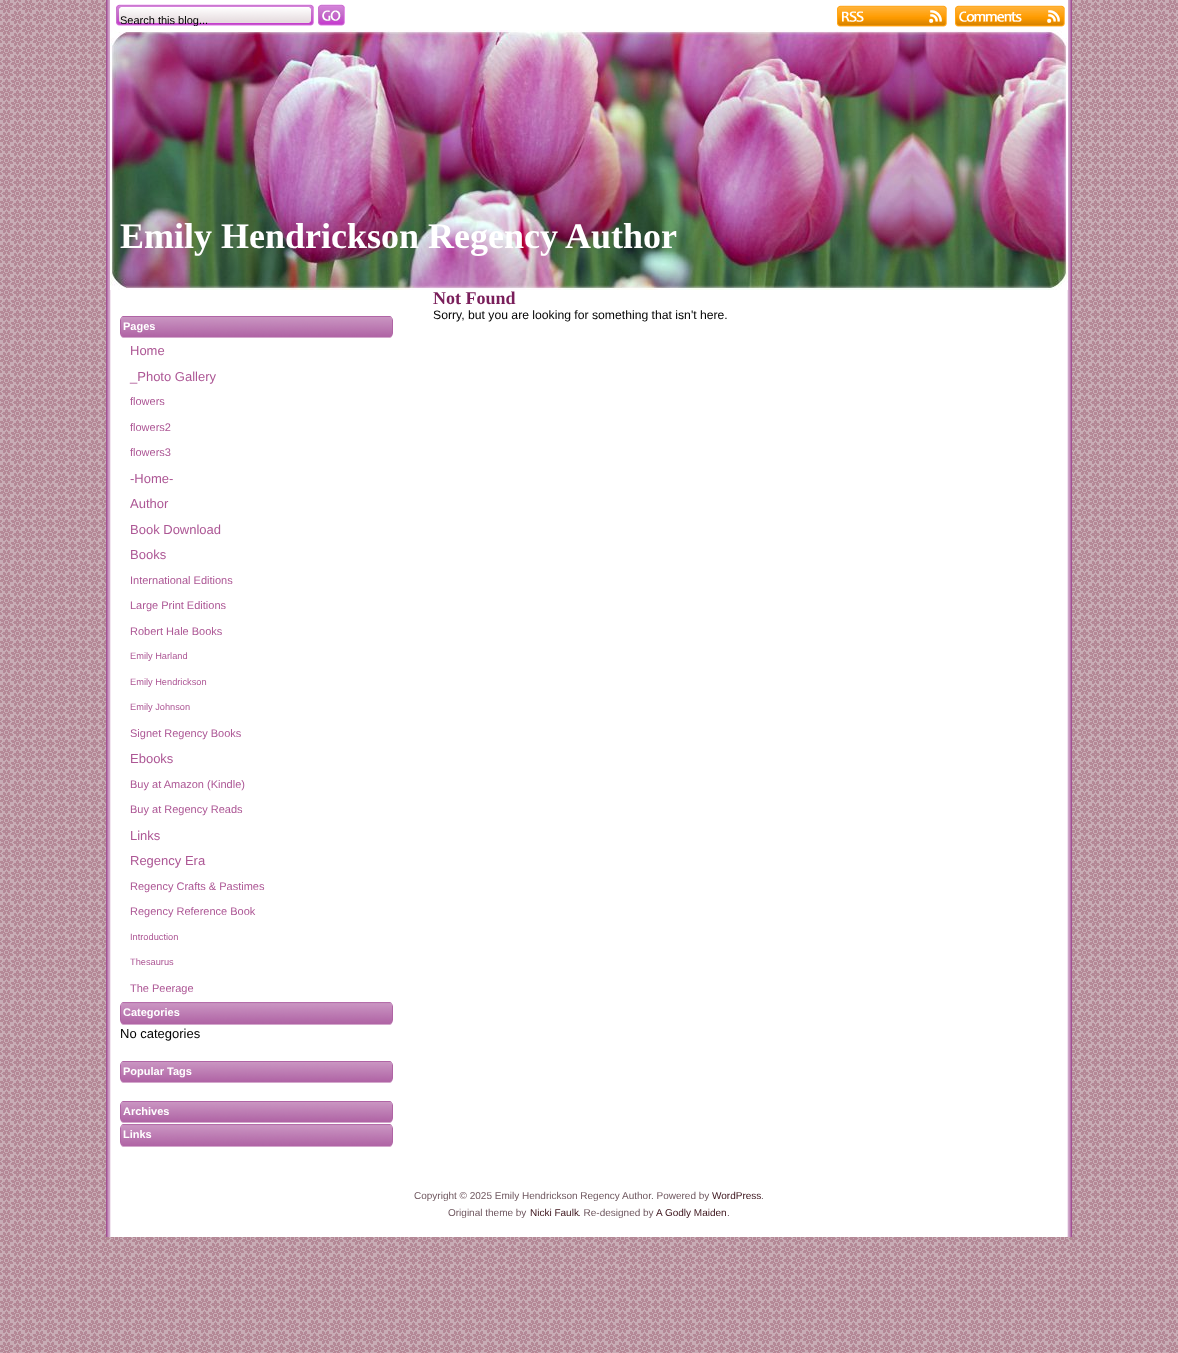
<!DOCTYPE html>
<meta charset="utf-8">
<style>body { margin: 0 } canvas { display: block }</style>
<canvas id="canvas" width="1178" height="1353"></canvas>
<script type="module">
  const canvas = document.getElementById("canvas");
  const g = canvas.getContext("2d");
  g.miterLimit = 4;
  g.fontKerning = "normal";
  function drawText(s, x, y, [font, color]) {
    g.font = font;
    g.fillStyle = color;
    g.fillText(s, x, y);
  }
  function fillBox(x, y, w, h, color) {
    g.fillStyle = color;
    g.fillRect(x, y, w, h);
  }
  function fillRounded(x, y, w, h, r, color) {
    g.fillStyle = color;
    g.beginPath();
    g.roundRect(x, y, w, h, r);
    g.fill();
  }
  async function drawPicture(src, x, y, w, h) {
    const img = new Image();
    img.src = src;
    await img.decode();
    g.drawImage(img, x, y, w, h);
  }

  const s1 = ["11px Liberation Sans", "#000000"];
  const s2 = ["bold 36px Liberation Serif", "#FFFFFF"];
  const s3 = ["bold 18px Liberation Serif", "#791E5A"];
  const s4 = ["12.2px Liberation Sans", "#000000"];
  const s5 = ["bold 11px Liberation Sans", "#FFFFFF"];
  const s6 = ["13px Liberation Sans", "#AD5795"];
  const s7 = ["11px Liberation Sans", "#AD5795"];
  const s8 = ["9.25px Liberation Sans", "#AD5795"];
  const s9 = ["13px Liberation Sans", "#000000"];
  const s10 = ["10px Liberation Sans", "#6F575F"];
  const s11 = ["10px Liberation Sans", "#3A1119"];

  fillBox(0, 0, 1178, 1353, "#FFFFFF");
  await drawPicture("pic1.png", 0, 0, 1178, 1353);
  await drawPicture("pic2.png", 106, 0, 966, 1237);
  fillBox(110, 0, 958, 30, "#FFFFFF");
  await drawPicture("pic7.png", 110, 30, 958, 260);
  fillRounded(115, 3, 202, 29, 3, "#FFFFFF");
  await drawPicture("pic3.png", 116, 4, 198, 22);
  g.save();
  g.beginPath();
  g.rect(120, 14, 195, 12);
  g.clip();
  drawText("Search this blog...", 120, 24, s1);
  g.restore();
  await drawPicture("pic4.png", 318, 4, 27, 22);
  await drawPicture("pic5.png", 837, 5, 110, 22);
  await drawPicture("pic6.png", 955, 5, 110, 22);
  drawText("Emily Hendrickson Regency Author", 120, 248, s2);
  drawText("Not Found", 433, 304, s3);
  drawText("Sorry, but you are looking for something that isn't here.", 433, 319, s4);
  await drawPicture("pic8.png", 120, 316, 273, 22);
  drawText("Pages", 123, 330, s5);
  drawText("Home", 130, 355, s6);
  drawText("_Photo Gallery", 130, 381, s6);
  drawText("flowers", 130, 405, s7);
  drawText("flowers2", 130, 431, s7);
  drawText("flowers3", 130, 456, s7);
  drawText("-Home-", 130, 483, s6);
  drawText("Author", 130, 508, s6);
  drawText("Book Download", 130, 534, s6);
  drawText("Books", 130, 559, s6);
  drawText("International Editions", 130, 584, s7);
  drawText("Large Print Editions", 130, 609, s7);
  drawText("Robert Hale Books", 130, 635, s7);
  drawText("Emily Harland", 130, 659, s8);
  drawText("Emily Hendrickson", 130, 685, s8);
  drawText("Emily Johnson", 130, 710, s8);
  drawText("Signet Regency Books", 130, 737, s7);
  drawText("Ebooks", 130, 763, s6);
  drawText("Buy at Amazon (Kindle)", 130, 788, s7);
  drawText("Buy at Regency Reads", 130, 813, s7);
  drawText("Links", 130, 840, s6);
  drawText("Regency Era", 130, 865, s6);
  drawText("Regency Crafts & Pastimes", 130, 890, s7);
  drawText("Regency Reference Book", 130, 915, s7);
  drawText("Introduction", 130, 940, s8);
  drawText("Thesaurus", 130, 965, s8);
  drawText("The Peerage", 130, 992, s7);
  await drawPicture("pic9.png", 120, 1002, 273, 23);
  drawText("Categories", 123, 1016, s5);
  drawText("No categories", 120, 1038, s9);
  await drawPicture("pic8.png", 120, 1061, 273, 22);
  drawText("Popular Tags", 123, 1075, s5);
  await drawPicture("pic8.png", 120, 1101, 273, 22);
  drawText("Archives", 123, 1115, s5);
  await drawPicture("pic9.png", 120, 1124, 273, 23);
  drawText("Links", 123, 1138, s5);
  drawText("Copyright © 2025 Emily Hendrickson Regency Author. Powered by", 414, 1199, s10);
  drawText("WordPress", 712, 1199, s11);
  drawText(".", 761, 1199, s10);
  drawText("Original theme by", 448, 1216, s10);
  drawText("Nicki Faulk", 530, 1216, s11);
  drawText(". Re-designed by", 578, 1216, s10);
  drawText("A Godly Maiden", 656, 1216, s11);
  drawText(".", 727, 1216, s10);
</script>
